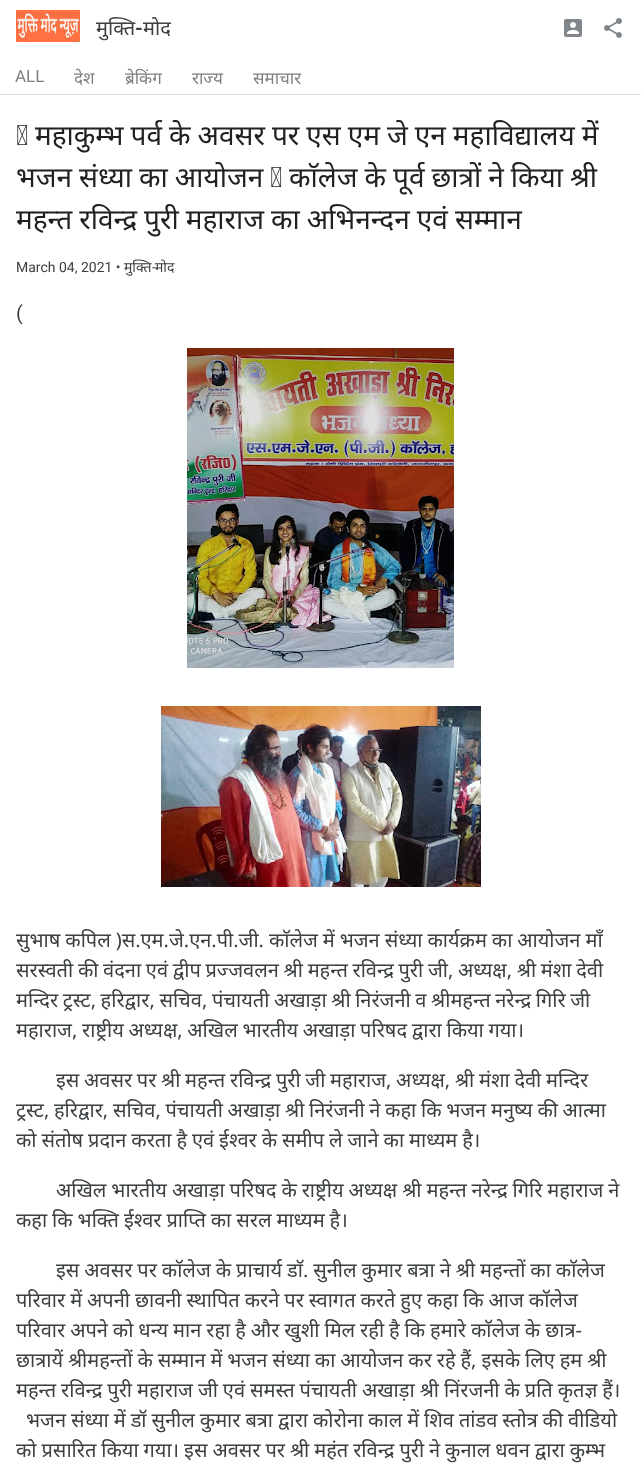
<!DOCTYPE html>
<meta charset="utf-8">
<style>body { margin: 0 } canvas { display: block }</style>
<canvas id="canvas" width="641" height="1472"></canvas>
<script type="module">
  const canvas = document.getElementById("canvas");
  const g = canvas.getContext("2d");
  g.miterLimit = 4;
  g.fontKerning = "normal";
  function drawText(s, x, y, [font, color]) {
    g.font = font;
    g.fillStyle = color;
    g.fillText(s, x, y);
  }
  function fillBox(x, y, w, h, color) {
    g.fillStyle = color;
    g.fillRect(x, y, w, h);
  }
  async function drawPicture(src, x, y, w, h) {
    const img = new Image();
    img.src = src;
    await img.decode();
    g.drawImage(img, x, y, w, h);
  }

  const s1 = ["20px Noto Sans", "#3C4043"];
  const s2 = ["bold 20px Roboto", "#3C4043"];
  const s3 = ["17px Roboto", "#808080"];
  const s4 = ["17px Noto Sans", "#808080"];
  const s5 = ["28px Noto Sans", "#202124"];
  const s6 = ["14px Roboto", "#3C4043"];
  const s7 = ["14px Noto Sans", "#3C4043"];
  const s8 = ["20px Roboto", "#3C4043"];

  fillBox(0, 0, 641, 1472, "#FFFFFF");
  fillBox(0, 94, 641, 1, "#E0E0E0");
  await drawPicture("pic1.png", 16, 10, 64, 32);
  drawText("मुक्ति", 96, 35, s1);
  drawText("-", 135, 35, s2);
  drawText("मोद", 143, 35, s1);
  await drawPicture("pic2.png", 564, 19, 18, 18);
  await drawPicture("pic3.png", 604, 18, 18, 20);
  drawText("ALL", 15, 82, s3);
  drawText("देश", 74, 84, s4);
  drawText("ब्रेकिंग", 125, 84, s4);
  drawText("राज्य", 192, 84, s4);
  drawText("समाचार", 253, 84, s4);
  await drawPicture("pic4.png", 17, 125, 11, 20);
  g.wordSpacing = "-0.25px";
  drawText("महाकुम्भ पर्व के अवसर पर एस एम जे एन महाविद्यालय में", 35, 145, s5);
  drawText("भजन संध्या का आयोजन", 16, 187, s5);
  await drawPicture("pic4.png", 271, 167, 11, 20);
  drawText("काॅलेज के पूर्व छात्रों ने किया श्री", 289, 187, s5);
  drawText("महन्त रविन्द्र पुरी महाराज का अभिनन्दन एवं सम्मान", 16, 229, s5);
  g.wordSpacing = "0px";
  drawText("March 04, 2021 •", 16, 272, s6);
  drawText("मुक्ति", 124, 272, s7);
  drawText("-", 152, 272, s6);
  drawText("मोद", 155, 272, s7);
  drawText("(", 16, 320, s8);
  await drawPicture("pic5.png", 187, 348, 267, 320);
  await drawPicture("pic6.png", 161, 706, 320, 181);
  g.wordSpacing = "-0.25px";
  drawText("सुभाष कपिल )स.एम.जे.एन.पी.जी. काॅलेज में भजन संध्या कार्यक्रम का आयोजन माँ", 16, 947, s1);
  g.wordSpacing = "-0.5px";
  drawText("सरस्वती की वंदना एवं द्वीप प्रज्जवलन श्री महन्त रविन्द्र पुरी जी, अध्यक्ष, श्री मंशा देवी", 16, 977, s1);
  g.wordSpacing = "-0.6px";
  drawText("मन्दिर ट्रस्ट, हरिद्वार, सचिव, पंचायती अखाड़ा श्री निरंजनी व श्रीमहन्त नरेन्द्र गिरि जी", 16, 1007, s1);
  g.wordSpacing = "-0.5px";
  drawText("महाराज, राष्ट्रीय अध्यक्ष, अखिल भारतीय अखाड़ा परिषद द्वारा किया गया।", 16, 1037, s1);
  drawText("इस अवसर पर श्री महन्त रविन्द्र पुरी जी महाराज, अध्यक्ष, श्री मंशा देवी मन्दिर", 56, 1087, s1);
  drawText("ट्रस्ट, हरिद्वार, सचिव, पंचायती अखाड़ा श्री निरंजनी ने कहा कि भजन मनुष्य की आत्मा", 16, 1117, s1);
  g.wordSpacing = "-0.25px";
  drawText("को संतोष प्रदान करता है एवं ईश्वर के समीप ले जाने का माध्यम है।", 16, 1147, s1);
  drawText("अखिल भारतीय अखाड़ा परिषद के राष्ट्रीय अध्यक्ष श्री महन्त नरेन्द्र गिरि महाराज ने", 56, 1197, s1);
  drawText("कहा कि भक्ति ईश्वर प्राप्ति का सरल माध्यम है।", 16, 1227, s1);
  drawText("इस अवसर पर काॅलेज के प्राचार्य डाॅ. सुनील कुमार बत्रा ने श्री महन्तों का काॅलेज", 56, 1277, s1);
  drawText("परिवार में अपनी छावनी स्थापित करने पर स्वागत करते हुए कहा कि आज काॅलेज", 16, 1307, s1);
  drawText("परिवार अपने को धन्य मान रहा है और खुशी मिल रही है कि हमारे काॅलेज के छात्र-", 16, 1337, s1);
  g.wordSpacing = "-0.3px";
  drawText("छात्रायें श्रीमहन्तों के सम्मान में भजन संध्या का आयोजन कर रहे हैं, इसके लिए हम श्री", 16, 1367, s1);
  g.wordSpacing = "-0.25px";
  drawText("महन्त रविन्द्र पुरी महाराज जी एवं समस्त पंचायती अखाड़ा श्री निंरजनी के प्रति कृतज्ञ हैं।", 16, 1397, s1);
  drawText("भजन संध्या में डॉ सुनील कुमार बत्रा द्वारा कोरोना काल में शिव तांडव स्तोत्र की वीडियो", 26, 1427, s1);
  drawText("को प्रसारित किया गया। इस अवसर पर श्री महंत रविन्द्र पुरी ने कुनाल धवन द्वारा कुम्भ", 16, 1457, s1);
</script>
